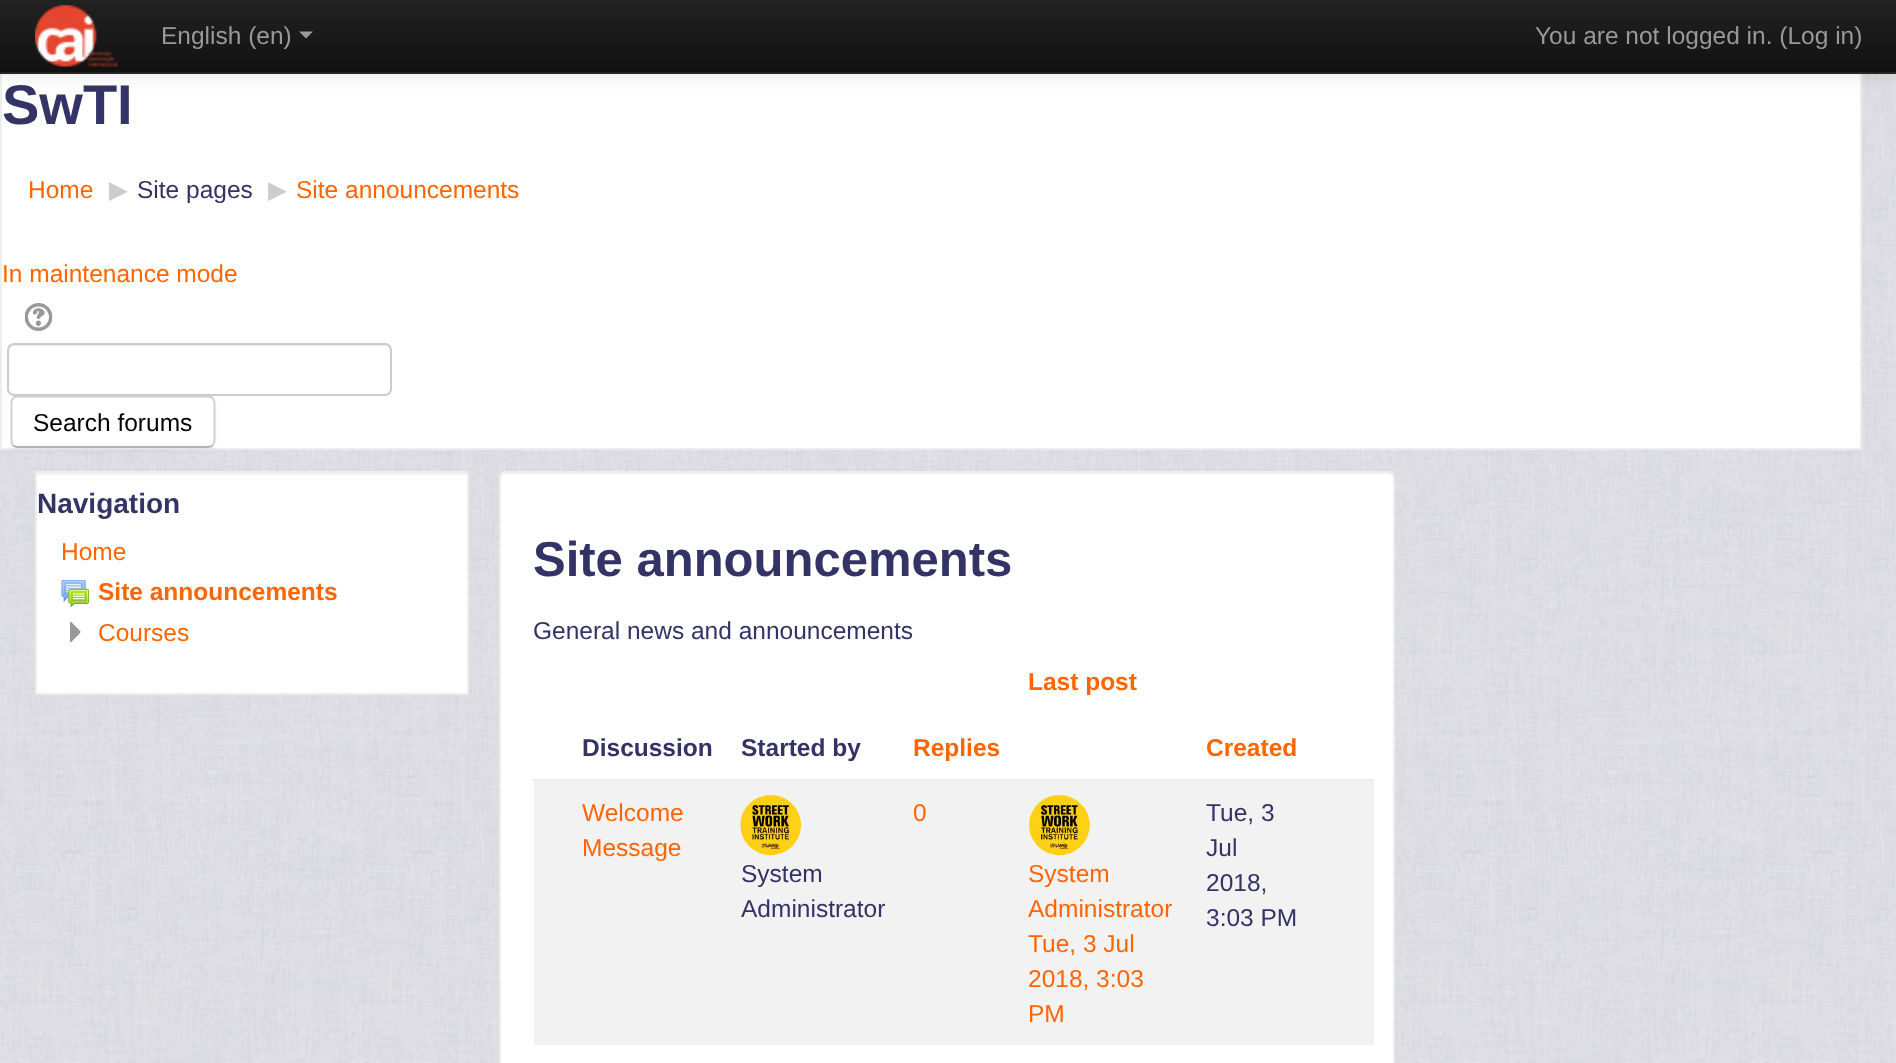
<!DOCTYPE html>
<meta charset="utf-8">
<style>body { margin: 0 } canvas { display: block }</style>
<canvas id="canvas" width="1896" height="1063"></canvas>
<script type="module">
  const canvas = document.getElementById("canvas");
  const g = canvas.getContext("2d");
  g.miterLimit = 4;
  g.fontKerning = "normal";
  function drawText(s, x, y, [font, color]) {
    g.font = font;
    g.fillStyle = color;
    g.fillText(s, x, y);
  }
  function fillBox(x, y, w, h, color) {
    g.fillStyle = color;
    g.fillRect(x, y, w, h);
  }
  function fillRounded(x, y, w, h, r, color) {
    g.fillStyle = color;
    g.beginPath();
    g.roundRect(x, y, w, h, r);
    g.fill();
  }
  async function drawPicture(src, x, y, w, h) {
    const img = new Image();
    img.src = src;
    await img.decode();
    g.drawImage(img, x, y, w, h);
  }
  let gradient;

  const s1 = ["24.5px Liberation Sans", "#999999"];
  const s2 = ["bold 56px Liberation Sans", "#333366"];
  const s3 = ["24.5px Liberation Sans", "#FF6500"];
  const s4 = ["24.5px DejaVu Sans", "#CCCCCC"];
  const s5 = ["24.5px Liberation Sans", "#333366"];
  const s6 = ["24.5px Liberation Sans", "#000000"];
  const s7 = ["bold 28px Liberation Sans", "#333366"];
  const s8 = ["bold 24.5px Liberation Sans", "#FF6500"];
  const s9 = ["bold 49px Liberation Sans", "#333366"];
  const s10 = ["bold 24.5px Liberation Sans", "#333366"];

  fillBox(0, 0, 1896, 1063, "#FFFFFF");
  await drawPicture("pic1.png", 0, 74, 1896, 989);
  fillBox(2, 74, 1858, 374, "#FFFFFF");
  g.strokeStyle = "#EDEDED";
  g.lineWidth = 2;
  g.strokeRect(1, 17, 1860, 432);
  g.fillStyle = "rgba(0, 0, 0, 0.1)";
  g.filter = "blur(9px)";
  g.beginPath();
  g.rect(0, 2, 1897, 73);
  g.fill();
  g.filter = "none";
  gradient = g.createLinearGradient(949, 0, 949, 72);
  gradient.addColorStop(0, "#222222");
  gradient.addColorStop(1, "#111111");
  g.fillStyle = gradient;
  g.fillRect(0, 0, 1896, 72);
  fillBox(0, 72, 1896, 2, "#252525");
  await drawPicture("pic2.png", 35, 5, 83, 62);
  drawText("English (en)", 161, 44, s1);
  g.beginPath();
  g.moveTo(299, 31.5);
  g.lineTo(313, 31.5);
  g.lineTo(306, 38.5);
  g.closePath();
  g.fill();
  drawText("You are not logged in. (Log in)", 1535, 44, s1);
  drawText("SwTI", 2, 124, s2);
  drawText("Home", 28, 198, s3);
  drawText("▶︎", 109, 198, s4);
  drawText("Site pages", 137, 198, s5);
  drawText("▶︎", 268, 198, s4);
  drawText("Site announcements", 296, 198, s3);
  drawText("In maintenance mode", 2, 282, s3);
  await drawPicture("pic3.png", 25, 303, 28, 28);
  g.fillStyle = "#ECECEC";
  g.beginPath();
  g.moveTo(14, 346);
  g.lineTo(385, 346);
  g.bezierCurveTo(388, 346, 390, 349, 390, 352);
  g.lineTo(390, 350);
  g.bezierCurveTo(390, 347, 388, 345, 385, 345);
  g.lineTo(14, 345);
  g.bezierCurveTo(11, 345, 9, 347, 9, 350);
  g.lineTo(9, 352);
  g.bezierCurveTo(9, 349, 11, 346, 14, 346);
  g.closePath();
  g.fill();
  g.beginPath();
  g.roundRect(8, 344, 383, 51, 6);
  g.strokeStyle = "#CCCCCC";
  g.stroke();
  g.fillStyle = "rgba(0, 0, 0, 0.05)";
  g.filter = "blur(2px)";
  g.beginPath();
  g.roundRect(11, 397, 204, 53, 7);
  g.fill();
  g.filter = "none";
  fillRounded(11, 396, 204, 52, 7, "#FFFFFF");
  g.beginPath();
  g.moveTo(212.5, 445.5);
  g.bezierCurveTo(211.5, 446.5, 210, 447, 208, 447);
  g.lineTo(17.5, 447);
  g.bezierCurveTo(16, 447, 14.5, 446.5, 13, 445.5);
  g.strokeStyle = "#B3B3B3";
  g.lineWidth = 1.8;
  g.stroke();
  g.beginPath();
  g.moveTo(13, 445.5);
  g.bezierCurveTo(12, 444, 11.5, 442.5, 11.5, 441);
  g.lineTo(11.5, 402.5);
  g.bezierCurveTo(11.5, 401, 12, 399.5, 13, 398);
  g.bezierCurveTo(14.5, 397, 16, 396.5, 17.5, 396.5);
  g.lineTo(208, 396.5);
  g.bezierCurveTo(210, 396.5, 211.5, 397, 212.5, 398);
  g.bezierCurveTo(213.5, 399.5, 214.5, 401, 214.5, 402.5);
  g.lineTo(214.5, 441);
  g.bezierCurveTo(214.5, 442.5, 213.5, 444, 212.5, 445.5);
  g.strokeStyle = "#CCCCCC";
  g.stroke();
  drawText("Search forums", 33, 431, s6);
  fillBox(37, 475, 430, 218, "#FFFFFF");
  fillBox(37, 473, 430, 2, "#F2F2F2");
  g.strokeStyle = "#EDEDED";
  g.lineWidth = 2;
  g.strokeRect(36, 472, 432, 222);
  drawText("Navigation", 37, 513, s7);
  drawText("Home", 61, 560, s3);
  await drawPicture("pic4.png", 61, 580, 28, 28);
  drawText("Site announcements", 98, 600, s8);
  await drawPicture("pic5.png", 70, 621, 11, 22);
  drawText("Courses", 98, 641, s3);
  fillRounded(499, 471, 896, 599, 7, "#FFFFFF");
  g.fillStyle = "#F2F2F2";
  g.beginPath();
  g.moveTo(506, 474);
  g.lineTo(1388, 474);
  g.bezierCurveTo(1391, 474, 1393, 477, 1393, 480);
  g.lineTo(1393, 478);
  g.bezierCurveTo(1393, 475, 1391, 473, 1388, 473);
  g.lineTo(506, 473);
  g.bezierCurveTo(504, 473, 502, 475, 501, 477);
  g.bezierCurveTo(502, 475, 504, 474, 506, 474);
  g.closePath();
  g.fill();
  g.beginPath();
  g.roundRect(500, 472, 894, 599, 6);
  g.stroke();
  drawText("Site announcements", 533, 576, s9);
  drawText("General news and announcements", 533, 639, s5);
  drawText("Last post", 1028, 690, s8);
  drawText("Discussion", 582, 756, s10);
  drawText("Started by", 741, 756, s10);
  drawText("Replies", 913, 756, s8);
  drawText("Created", 1206, 756, s8);
  fillBox(532, 779, 842, 2, "#EDEDED");
  fillBox(534, 781, 840, 264, "#F2F2F2");
  drawText("Welcome", 582, 821, s3);
  drawText("Message", 582, 856, s3);
  await drawPicture("pic6.png", 740, 794, 62, 62);
  drawText("System", 741, 882, s5);
  drawText("Administrator", 741, 917, s5);
  drawText("0", 913, 821, s3);
  await drawPicture("pic7.png", 1029, 794, 61, 62);
  drawText("System", 1028, 882, s3);
  drawText("Administrator", 1028, 917, s3);
  drawText("Tue, 3 Jul", 1028, 952, s3);
  drawText("2018, 3:03", 1028, 987, s3);
  drawText("PM", 1028, 1022, s3);
  drawText("Tue, 3", 1206, 821, s5);
  drawText("Jul", 1206, 856, s5);
  drawText("2018,", 1206, 891, s5);
  drawText("3:03 PM", 1206, 926, s5);
</script>
